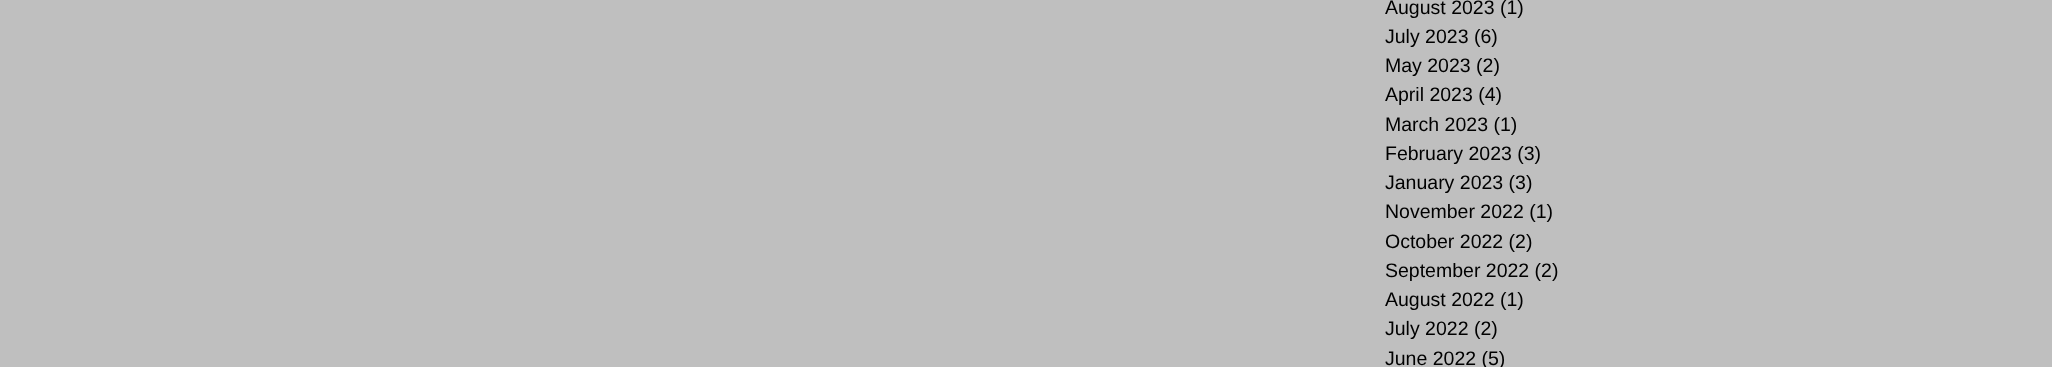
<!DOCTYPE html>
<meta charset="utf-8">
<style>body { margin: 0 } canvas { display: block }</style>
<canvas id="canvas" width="2052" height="367"></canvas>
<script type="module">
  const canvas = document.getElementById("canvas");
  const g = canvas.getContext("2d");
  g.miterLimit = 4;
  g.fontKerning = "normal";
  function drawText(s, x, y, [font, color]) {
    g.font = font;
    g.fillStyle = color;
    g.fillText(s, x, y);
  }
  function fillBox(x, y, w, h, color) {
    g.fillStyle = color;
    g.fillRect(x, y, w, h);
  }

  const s1 = ["19.5px Liberation Sans", "#000000"];

  fillBox(0, 0, 2052, 367, "#BFBFBF");
  drawText("August 2023 (1)", 1385, 14, s1);
  drawText("July 2023 (6)", 1385, 43, s1);
  drawText("May 2023 (2)", 1385, 72, s1);
  drawText("April 2023 (4)", 1385, 101, s1);
  drawText("March 2023 (1)", 1385, 131, s1);
  drawText("February 2023 (3)", 1385, 160, s1);
  drawText("January 2023 (3)", 1385, 189, s1);
  drawText("November 2022 (1)", 1385, 218, s1);
  drawText("October 2022 (2)", 1385, 248, s1);
  drawText("September 2022 (2)", 1385, 277, s1);
  drawText("August 2022 (1)", 1385, 306, s1);
  drawText("July 2022 (2)", 1385, 335, s1);
  drawText("June 2022 (5)", 1385, 365, s1);
</script>
